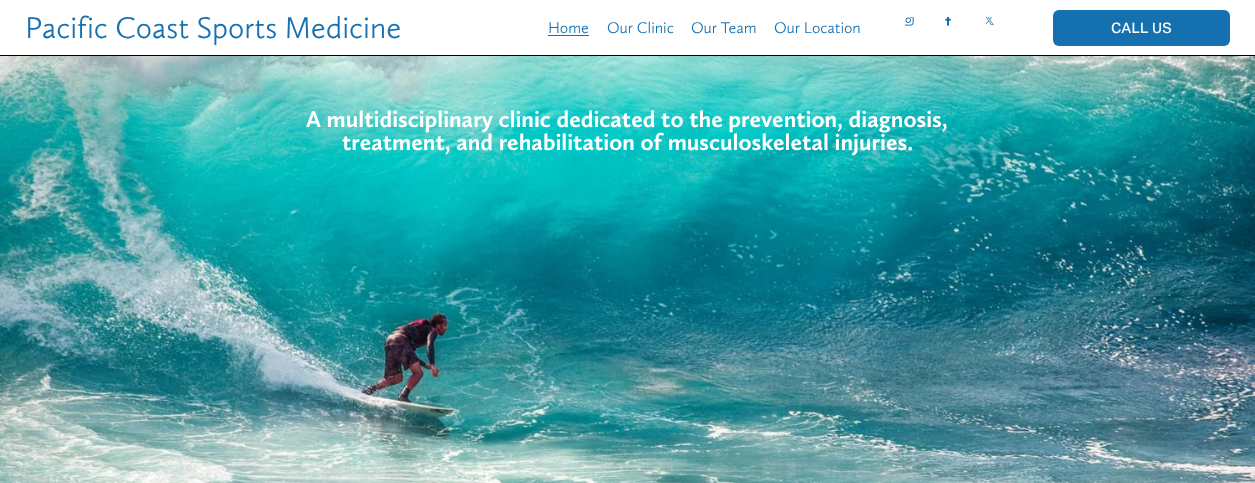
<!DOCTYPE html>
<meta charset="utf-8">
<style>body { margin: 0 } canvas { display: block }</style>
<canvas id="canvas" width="1255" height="483"></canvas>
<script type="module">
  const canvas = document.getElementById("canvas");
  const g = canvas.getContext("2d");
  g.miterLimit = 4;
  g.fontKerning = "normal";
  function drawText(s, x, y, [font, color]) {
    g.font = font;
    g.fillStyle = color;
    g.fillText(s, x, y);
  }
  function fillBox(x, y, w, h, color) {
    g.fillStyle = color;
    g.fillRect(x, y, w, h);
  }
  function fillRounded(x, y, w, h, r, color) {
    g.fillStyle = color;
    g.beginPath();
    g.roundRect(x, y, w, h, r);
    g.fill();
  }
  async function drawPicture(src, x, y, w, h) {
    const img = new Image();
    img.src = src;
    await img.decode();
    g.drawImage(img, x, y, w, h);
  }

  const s1 = ["300 31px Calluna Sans", "#1470AF"];
  const s2 = ["300 16px Calluna Sans", "#1470AF"];
  const s3 = ["500 14.5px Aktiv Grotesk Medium", "#FFFFFF"];
  const s4 = ["bold 23.5px Calluna Sans", "#FFFFFF"];

  fillBox(0, 0, 1255, 483, "#FFFFFF");
  drawText("Pacific Coast Sports Medicine", 25, 38, s1);
  fillBox(548, 35, 41, 1, "#1470AF");
  drawText("Home", 548, 33, s2);
  drawText("Our Clinic", 607, 33, s2);
  drawText("Our Team", 691, 33, s2);
  drawText("Our Location", 774, 33, s2);
  await drawPicture("pic1.png", 905, 17, 9, 9);
  await drawPicture("pic2.png", 945, 17, 6, 9);
  await drawPicture("pic3.png", 986, 17, 8, 9);
  fillRounded(1053, 10, 177, 36, 6, "#1470AF");
  g.letterSpacing = "0.25px";
  drawText("CALL US", 1111, 33, s3);
  fillBox(0, 55, 1255, 1, "#000000");
  await drawPicture("pic4.png", 0, 56, 1255, 427);
  g.letterSpacing = "0px";
  drawText("A multidisciplinary clinic dedicated to the prevention, diagnosis,", 306, 127, s4);
  drawText("treatment, and rehabilitation of musculoskeletal injuries.", 342, 150, s4);
</script>
